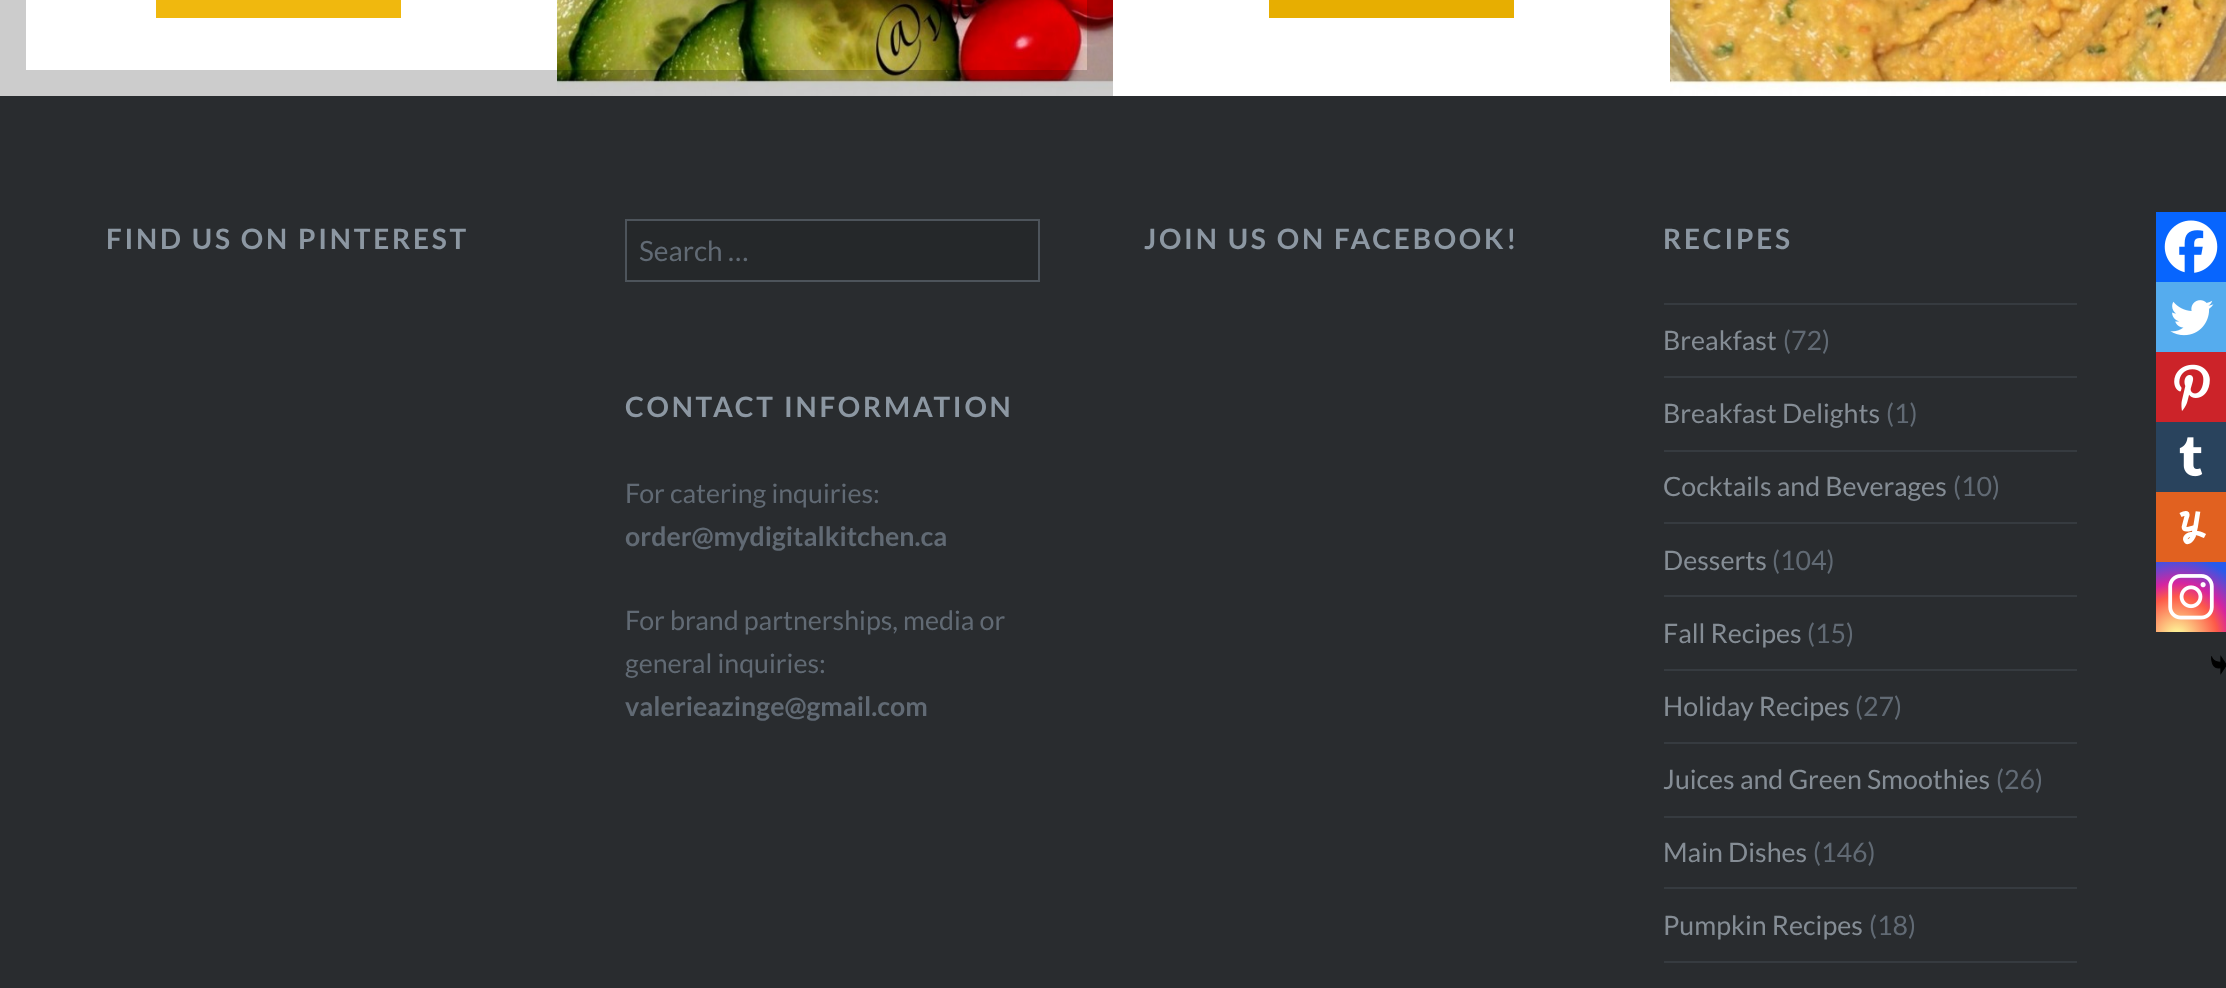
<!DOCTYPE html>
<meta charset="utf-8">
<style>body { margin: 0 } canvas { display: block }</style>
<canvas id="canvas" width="2226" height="988"></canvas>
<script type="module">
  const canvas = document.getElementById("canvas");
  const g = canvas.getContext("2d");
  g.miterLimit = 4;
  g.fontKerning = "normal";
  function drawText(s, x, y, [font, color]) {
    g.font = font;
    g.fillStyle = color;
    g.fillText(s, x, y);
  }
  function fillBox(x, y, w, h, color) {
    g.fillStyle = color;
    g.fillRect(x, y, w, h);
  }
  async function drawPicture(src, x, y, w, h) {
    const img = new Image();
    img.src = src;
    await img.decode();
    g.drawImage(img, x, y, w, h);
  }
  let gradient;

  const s1 = ["bold 28px Lato", "#8C97A2"];
  const s2 = ["28px Lato", "#616A74"];
  const s3 = ["26.75px Lato", "#858D95"];
  const s4 = ["26.75px Lato", "#616A74"];
  const s5 = ["bold 26.75px Lato", "#616A74"];

  fillBox(0, 0, 2226, 988, "#FFFFFF");
  fillBox(156, 0, 245, 18, "#F0B80E");
  await drawPicture("pic1.png", 557, 0, 556, 96);
  g.strokeStyle = "rgba(0, 0, 0, 0.2)";
  g.lineWidth = 26;
  g.strokeRect(13, -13, 1087, 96);
  fillBox(1269, 0, 245, 18, "#E7AE01");
  await drawPicture("pic2.png", 1670, 0, 556, 96);
  fillBox(0, 96, 2226, 892, "#292C2F");
  g.letterSpacing = "2.75px";
  drawText("FIND US ON PINTEREST", 106, 249, s1);
  g.fillStyle = "#25282A";
  g.beginPath();
  g.rect(626, 220, 413, 61);
  g.fill();
  g.strokeStyle = "#4D545B";
  g.lineWidth = 2;
  g.stroke();
  g.letterSpacing = "0px";
  drawText("Search …", 639, 261, s2);
  g.letterSpacing = "2.75px";
  drawText("JOIN US ON FACEBOOK!", 1144, 249, s1);
  drawText("RECIPES", 1663, 249, s1);
  fillBox(1664, 303, 413, 2, "#363B40");
  fillBox(1664, 376, 413, 2, "#363B40");
  g.letterSpacing = "0px";
  drawText("Breakfast", 1663, 350, s3);
  drawText("(72)", 1783, 350, s4);
  fillBox(1664, 450, 413, 2, "#363B40");
  drawText("Breakfast Delights", 1663, 423, s3);
  drawText("(1)", 1886, 423, s4);
  fillBox(1664, 522, 413, 2, "#363B40");
  drawText("Cocktails and Beverages", 1663, 496, s3);
  drawText("(10)", 1953, 496, s4);
  fillBox(1664, 595, 413, 2, "#363B40");
  drawText("Desserts", 1663, 570, s3);
  drawText("(104)", 1772, 570, s4);
  fillBox(1664, 669, 413, 2, "#363B40");
  drawText("Fall Recipes", 1663, 643, s3);
  drawText("(15)", 1807, 643, s4);
  fillBox(1664, 742, 413, 2, "#363B40");
  drawText("Holiday Recipes", 1663, 716, s3);
  drawText("(27)", 1855, 716, s4);
  fillBox(1664, 816, 413, 2, "#363B40");
  drawText("Juices and Green Smoothies", 1663, 789, s3);
  drawText("(26)", 1996, 789, s4);
  fillBox(1664, 887, 413, 2, "#363B40");
  drawText("Main Dishes", 1663, 862, s3);
  drawText("(146)", 1813, 862, s4);
  fillBox(1664, 961, 413, 2, "#363B40");
  drawText("Pumpkin Recipes", 1663, 935, s3);
  drawText("(18)", 1869, 935, s4);
  fillBox(2156, 212, 70, 70, "#0765FE");
  await drawPicture("pic3.png", 2164, 220, 54, 53);
  fillBox(2156, 282, 70, 70, "#55ACEE");
  await drawPicture("pic4.png", 2170, 300, 44, 36);
  fillBox(2156, 352, 70, 70, "#CC2329");
  await drawPicture("pic5.png", 2174, 364, 36, 47);
  fillBox(2156, 422, 70, 70, "#29435D");
  await drawPicture("pic6.png", 2179, 437, 24, 40);
  fillBox(2156, 492, 70, 70, "#E16120");
  g.beginPath();
  g.moveTo(2180.5, 515);
  g.bezierCurveTo(2186.5, 512, 2188.5, 513, 2186.5, 517.5);
  g.lineTo(2184, 527);
  g.bezierCurveTo(2184, 530, 2188, 530, 2195.5, 527);
  g.lineTo(2198, 511.5);
  g.moveTo(2195.5, 527);
  g.lineTo(2193.5, 536);
  g.bezierCurveTo(2186.5, 550, 2179.5, 534, 2193.5, 534);
  g.bezierCurveTo(2195, 532, 2199, 533, 2205, 536);
  g.strokeStyle = "#FFFFFF";
  g.lineWidth = 4.7;
  g.stroke();
  gradient = g.createRadialGradient(2177, 637, 0, 2177, 637, 90);
  gradient.addColorStop(0, "#FDF497");
  gradient.addColorStop(0.05, "#FDF497");
  gradient.addColorStop(0.45, "#FD5949");
  gradient.addColorStop(0.6, "#D6249F");
  gradient.addColorStop(0.9, "#285AEB");
  g.fillStyle = gradient;
  g.fillRect(2156, 562, 70, 70);
  await drawPicture("pic7.png", 2168, 574, 46, 46);
  await drawPicture("pic8.png", 2211, 655, 15, 20);
  g.letterSpacing = "2.75px";
  drawText("CONTACT INFORMATION", 625, 417, s1);
  g.letterSpacing = "0px";
  drawText("For catering inquiries:", 625, 503, s4);
  drawText("order@mydigitalkitchen.ca", 625, 546, s5);
  drawText("For brand partnerships, media or", 625, 630, s4);
  drawText("general inquiries:", 625, 673, s4);
  drawText("valerieazinge@gmail.com", 625, 716, s5);
</script>
